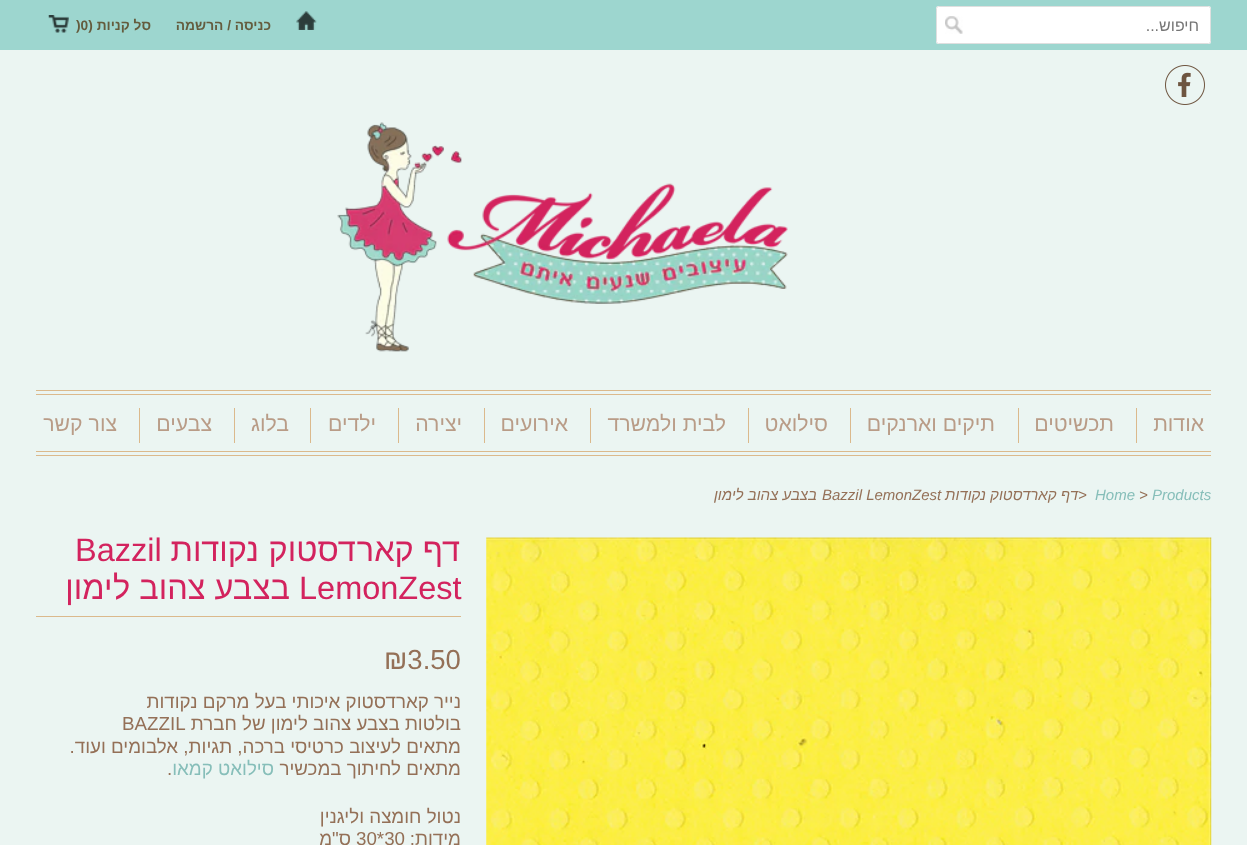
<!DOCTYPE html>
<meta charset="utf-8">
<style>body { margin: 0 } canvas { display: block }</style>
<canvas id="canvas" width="1247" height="845"></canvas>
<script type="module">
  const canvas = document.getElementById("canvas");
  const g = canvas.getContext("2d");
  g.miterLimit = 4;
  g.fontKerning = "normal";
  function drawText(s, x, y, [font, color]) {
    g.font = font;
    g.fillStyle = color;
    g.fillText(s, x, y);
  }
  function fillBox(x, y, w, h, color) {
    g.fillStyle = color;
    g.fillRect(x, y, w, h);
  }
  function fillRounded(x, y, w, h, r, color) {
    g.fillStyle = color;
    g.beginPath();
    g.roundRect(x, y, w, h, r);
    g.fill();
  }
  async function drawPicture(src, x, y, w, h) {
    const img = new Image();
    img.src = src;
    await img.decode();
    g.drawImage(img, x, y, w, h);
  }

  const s1 = ["16px Liberation Sans", "#757575"];
  const s2 = ["bold 13.75px Liberation Sans", "#645C3E"];
  const s3 = ["21.25px Liberation Sans", "#B99C87"];
  const s4 = ["italic 15px Liberation Sans", "#86BEB9"];
  const s5 = ["italic 15px Liberation Sans", "#947057"];
  const s6 = ["32.5px Arimo", "#D3235E"];
  const s7 = ["27.5px Liberation Sans", "#947057"];
  const s8 = ["18.75px Liberation Sans", "#947057"];
  const s9 = ["18.75px Liberation Sans", "#86BEB9"];

  fillBox(0, 0, 1247, 845, "#EBF5F2");
  fillBox(0, 0, 1247, 50, "#9DD6CF");
  fillRounded(936, 6, 275, 38, 2.5, "#FFFFFF");
  await drawPicture("pic1.png", 945, 16, 18, 18);
  g.beginPath();
  g.roundRect(936.5, 6.5, 274, 37, 2);
  g.strokeStyle = "#DFDFDF";
  g.stroke();
  g.direction = "rtl";
  drawText("חיפוש...", 1199, 31, s1);
  await drawPicture("pic2.png", 296, 11, 21, 19);
  drawText("כניסה / הרשמה", 271, 30, s2);
  await drawPicture("pic3.png", 48, 15, 21, 18);
  drawText("סל קניות (", 151, 30, s2);
  g.direction = "ltr";
  drawText(")0", 76, 30, s2);
  await drawPicture("pic4.png", 1165, 65, 40, 40);
  await drawPicture("pic5.png", 337, 122, 451, 230);
  fillBox(36, 390, 1175, 1, "#DBB98C");
  fillBox(36, 394, 1175, 1, "#DBB98C");
  fillBox(36, 451, 1175, 1, "#DBB98C");
  fillBox(36, 455, 1175, 1, "#DBB98C");
  fillBox(1136, 408, 1, 35, "#DBB98C");
  g.direction = "rtl";
  drawText("אודות", 1204, 431, s3);
  fillBox(1018, 408, 1, 35, "#DBB98C");
  drawText("תכשיטים", 1114, 431, s3);
  fillBox(850, 408, 1, 35, "#DBB98C");
  drawText("תיקים וארנקים", 995, 431, s3);
  fillBox(748, 408, 1, 35, "#DBB98C");
  drawText("סילואט", 828, 431, s3);
  fillBox(590, 408, 1, 35, "#DBB98C");
  drawText("לבית ולמשרד", 726, 431, s3);
  fillBox(484, 408, 1, 35, "#DBB98C");
  drawText("אירועים", 568, 431, s3);
  fillBox(398, 408, 1, 35, "#DBB98C");
  drawText("יצירה", 462, 431, s3);
  fillBox(310, 408, 1, 35, "#DBB98C");
  drawText("ילדים", 376, 431, s3);
  fillBox(234, 408, 1, 35, "#DBB98C");
  drawText("בלוג", 289, 431, s3);
  fillBox(139, 408, 1, 35, "#DBB98C");
  drawText("צבעים", 212, 431, s3);
  drawText("צור קשר", 117, 431, s3);
  g.direction = "ltr";
  drawText("Products", 1152, 500, s4);
  drawText(">", 1139, 500, s5);
  drawText("Home", 1095, 500, s4);
  drawText(">", 1078, 500, s5);
  g.direction = "rtl";
  drawText("דף קארדסטוק נקודות", 1078, 500, s5);
  g.direction = "ltr";
  drawText("Bazzil LemonZest", 822, 500, s5);
  g.direction = "rtl";
  drawText("בצבע צהוב לימון", 817, 500, s5);
  await drawPicture("pic6.png", 486, 537, 726, 308);
  fillBox(36, 616, 425, 1, "#DBB98C");
  drawText("דף קארדסטוק נקודות", 461, 561, s6);
  g.direction = "ltr";
  drawText("Bazzil", 75, 561, s6);
  drawText("LemonZest", 299, 599, s6);
  g.direction = "rtl";
  drawText("בצבע צהוב לימון", 290, 599, s6);
  g.direction = "ltr";
  drawText("₪3.50", 384, 669, s7);
  g.direction = "rtl";
  drawText("נייר קארדסטוק איכותי בעל מרקם נקודות", 461, 708, s8);
  drawText("בולטות בצבע צהוב לימון של חברת", 461, 730, s8);
  g.direction = "ltr";
  drawText("BAZZIL", 122, 730, s8);
  g.direction = "rtl";
  drawText("מתאים לעיצוב כרטיסי ברכה, תגיות, אלבומים ועוד.", 461, 753, s8);
  drawText("מתאים לחיתוך במכשיר", 461, 775, s8);
  drawText("סילואט קמאו", 274, 775, s9);
  g.direction = "ltr";
  drawText(".", 167, 775, s8);
  g.direction = "rtl";
  drawText("נטול חומצה וליגנין", 461, 823, s8);
  drawText("מידות:", 461, 845, s8);
  g.direction = "ltr";
  drawText("30*30", 356, 845, s8);
  g.direction = "rtl";
  drawText("ס\"מ", 351, 845, s8);
</script>
